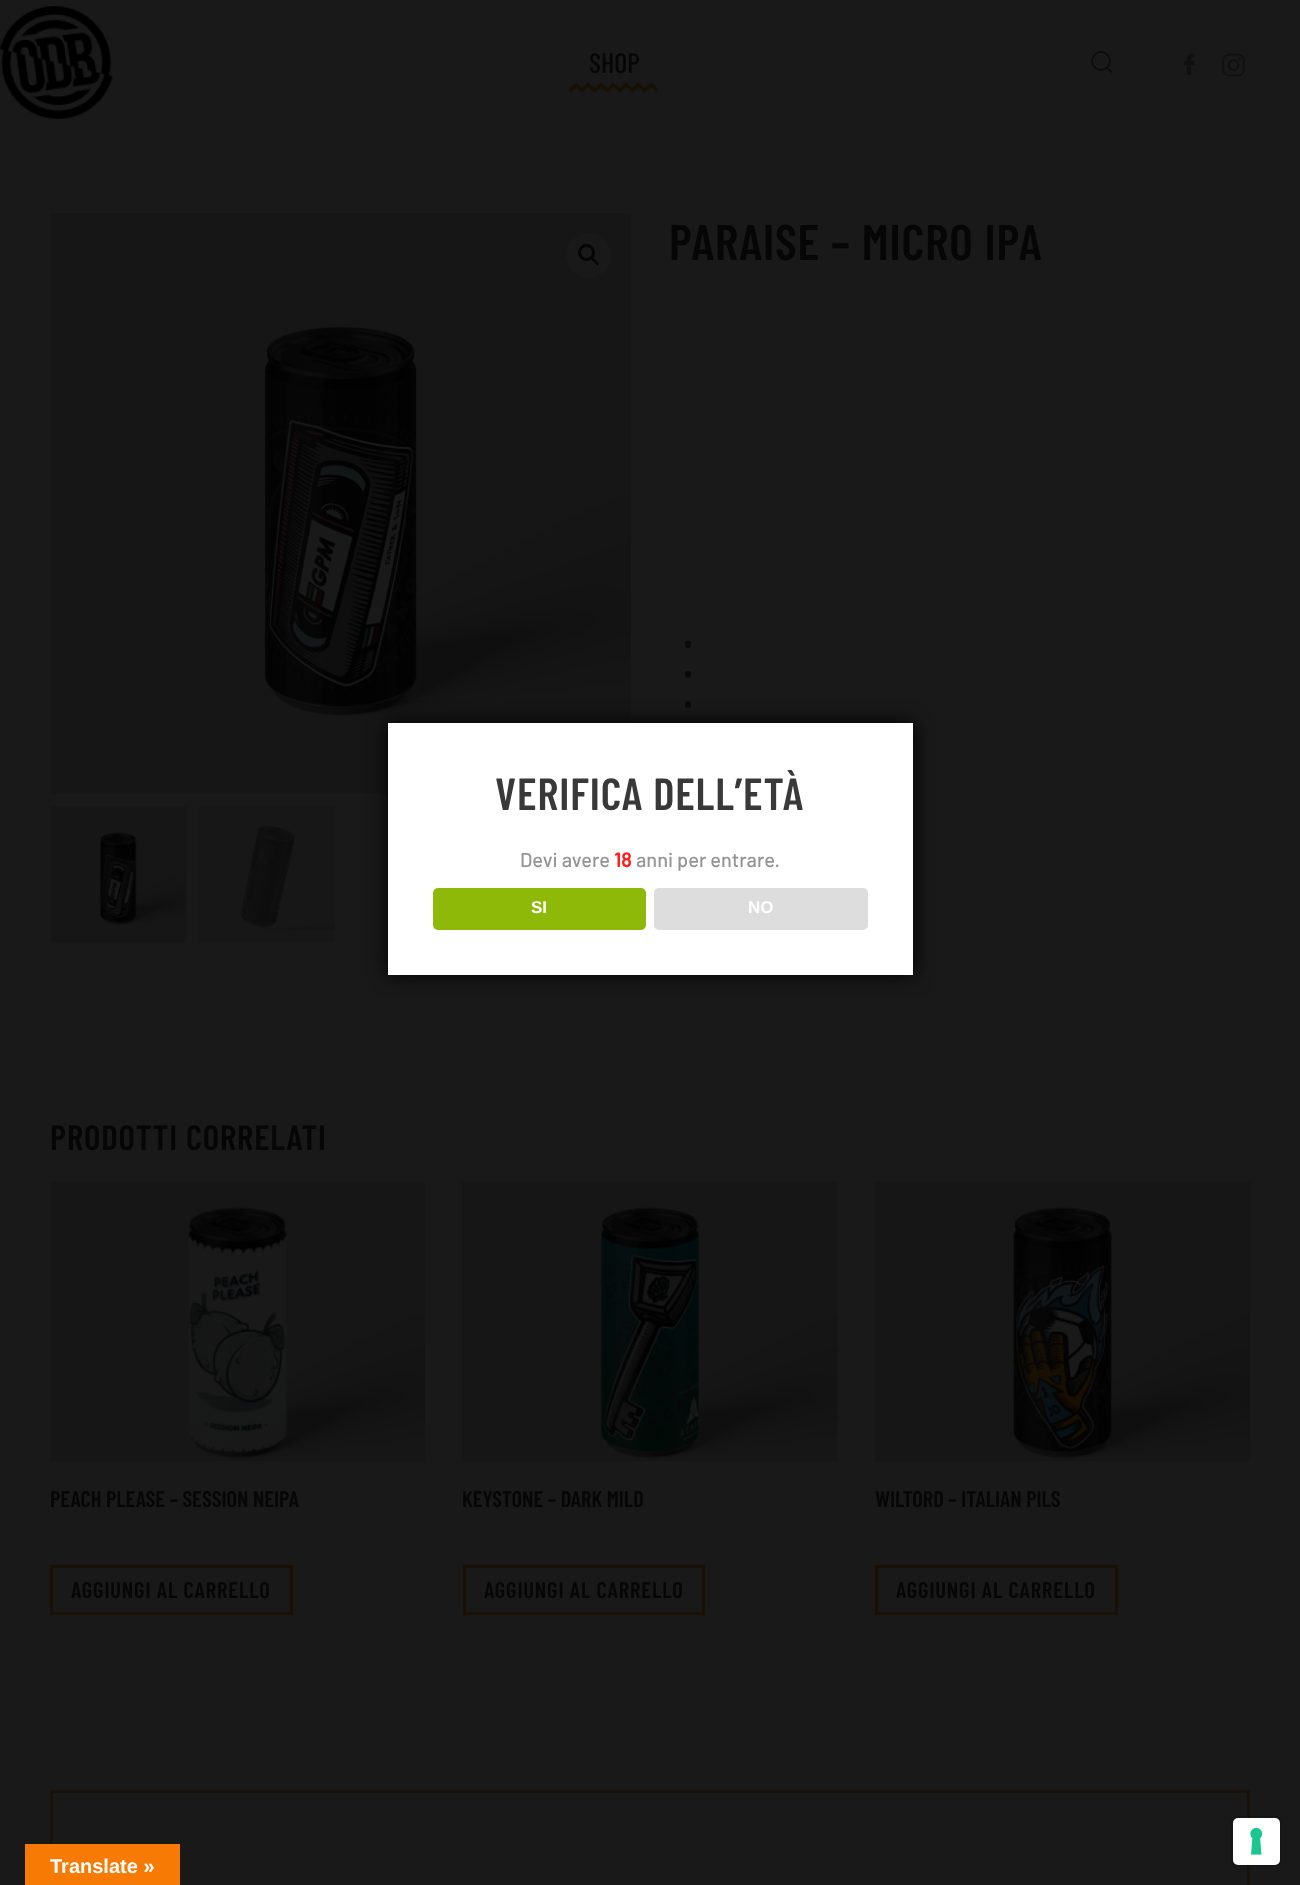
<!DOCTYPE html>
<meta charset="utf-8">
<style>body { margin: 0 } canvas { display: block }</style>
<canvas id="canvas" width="1300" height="1885"></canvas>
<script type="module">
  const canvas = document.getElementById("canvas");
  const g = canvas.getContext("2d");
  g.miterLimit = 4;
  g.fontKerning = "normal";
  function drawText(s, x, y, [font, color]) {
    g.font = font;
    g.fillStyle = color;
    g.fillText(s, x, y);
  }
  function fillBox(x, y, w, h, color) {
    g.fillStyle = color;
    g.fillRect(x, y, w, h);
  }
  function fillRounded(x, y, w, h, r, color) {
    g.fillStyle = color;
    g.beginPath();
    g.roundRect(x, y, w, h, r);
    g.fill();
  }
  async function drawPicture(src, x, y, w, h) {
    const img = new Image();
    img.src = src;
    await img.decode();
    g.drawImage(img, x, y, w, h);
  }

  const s1 = ["500 28px Barlow Condensed", "#060606"];
  const s2 = ["600 50px Barlow Condensed", "#060606"];
  const s3 = ["600 35px Barlow Condensed", "#060606"];
  const s4 = ["600 22.5px Barlow Condensed", "#060606"];
  const s5 = ["600 45px Barlow Condensed", "#393939"];
  const s6 = ["500 20px Barlow", "#959595"];
  const s7 = ["bold 20px Barlow", "#FF1F1F"];
  const s8 = ["bold 17px Liberation Sans", "#FFFFFF"];
  const s9 = ["bold 20px Liberation Sans", "#FFFFFF"];

  fillBox(0, 0, 1300, 1885, "#191919");
  await drawPicture("pic1.png", 0, 6, 113, 113);
  drawText("SHOP", 589, 73, s1);
  await drawPicture("pic2.png", 569, 82, 89, 12);
  g.beginPath();
  g.arc(1101, 61, 9, 0, Math.PI * 2);
  g.strokeStyle = "#0A0A0A";
  g.lineWidth = 1.4;
  g.stroke();
  g.beginPath();
  g.moveTo(1107, 67.5);
  g.lineTo(1112, 72.5);
  g.closePath();
  g.stroke();
  await drawPicture("pic3.png", 1184, 53, 11, 22);
  await drawPicture("pic4.png", 1222, 53, 23, 24);
  await drawPicture("pic5.png", 50, 213, 581, 581);
  g.fillStyle = "#191919";
  g.beginPath();
  g.arc(588.5, 255.5, 22.5, 0, Math.PI * 2);
  g.fill();
  g.beginPath();
  g.arc(586.5, 252.5, 7, 0, Math.PI * 2);
  g.strokeStyle = "#060606";
  g.lineWidth = 3;
  g.stroke();
  g.fillStyle = "#060606";
  g.beginPath();
  g.moveTo(591.5, 257.5);
  g.bezierCurveTo(593, 256.5, 595, 259.5, 596, 260.5);
  g.bezierCurveTo(596.5, 261, 600, 263.5, 598.5, 265);
  g.bezierCurveTo(597, 266, 595, 263, 594, 262);
  g.bezierCurveTo(593.5, 261.5, 590, 259, 591.5, 257.5);
  g.closePath();
  g.fill();
  await drawPicture("pic6.png", 50, 806, 137, 137);
  await drawPicture("pic7.png", 198, 806, 137, 137);
  g.letterSpacing = "0.9px";
  drawText("PARAISE – MICRO IPA", 669, 260, s2);
  fillRounded(685, 641, 6, 7, 3, "#0A0A0A");
  fillRounded(685, 671, 6, 7, 3, "#0A0A0A");
  fillRounded(685, 701, 6, 7, 3, "#0A0A0A");
  drawText("PRODOTTI CORRELATI", 50, 1150, s3);
  await drawPicture("pic8.png", 50, 1181, 375, 281);
  g.letterSpacing = "0px";
  drawText("PEACH PLEASE – SESSION NEIPA", 50, 1507, s4);
  g.strokeStyle = "#190F04";
  g.strokeRect(51.5, 1566.5, 240, 47);
  g.letterSpacing = "0.9px";
  drawText("AGGIUNGI AL CARRELLO", 71, 1598, s4);
  await drawPicture("pic9.png", 462, 1181, 376, 281);
  g.letterSpacing = "0px";
  drawText("KEYSTONE – DARK MILD", 462, 1507, s4);
  g.strokeRect(464.5, 1566.5, 239, 47);
  g.letterSpacing = "0.9px";
  drawText("AGGIUNGI AL CARRELLO", 484, 1598, s4);
  await drawPicture("pic10.png", 875, 1181, 375, 281);
  g.letterSpacing = "0px";
  drawText("WILTORD – ITALIAN PILS", 875, 1507, s4);
  g.strokeRect(876.5, 1566.5, 240, 47);
  g.letterSpacing = "0.9px";
  drawText("AGGIUNGI AL CARRELLO", 896, 1598, s4);
  g.strokeStyle = "#19120A";
  g.strokeRect(51.5, 1791.5, 1197, 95);
  g.fillStyle = "#000000";
  g.filter = "blur(9.5px)";
  g.beginPath();
  g.rect(388, 723, 525, 252);
  g.fill();
  g.filter = "none";
  fillBox(388, 723, 525, 252, "#FFFFFF");
  drawText("VERIFICA DELL’ETÀ", 495, 810, s5);
  g.letterSpacing = "0px";
  drawText("Devi avere", 520, 867, s6);
  drawText("18", 614, 867, s7);
  drawText("anni per entrare.", 636, 867, s6);
  fillRounded(433, 888, 213, 42, 5, "#8EB908");
  drawText("SI", 531, 913, s8);
  fillRounded(654, 888, 214, 42, 5, "#DDDDDD");
  drawText("NO", 748, 913, s8);
  fillBox(25, 1844, 155, 41, "#F77A04");
  drawText("Translate »", 50, 1873, s9);
  g.beginPath();
  g.roundRect(1231.5, 1816.5, 49, 49, 5.5);
  g.strokeStyle = "rgba(0, 0, 0, 0.15)";
  g.lineWidth = 1;
  g.stroke();
  fillRounded(1233, 1818, 47, 47, 5, "#FFFFFF");
  await drawPicture("pic11.png", 1250, 1827, 13, 28);
</script>
